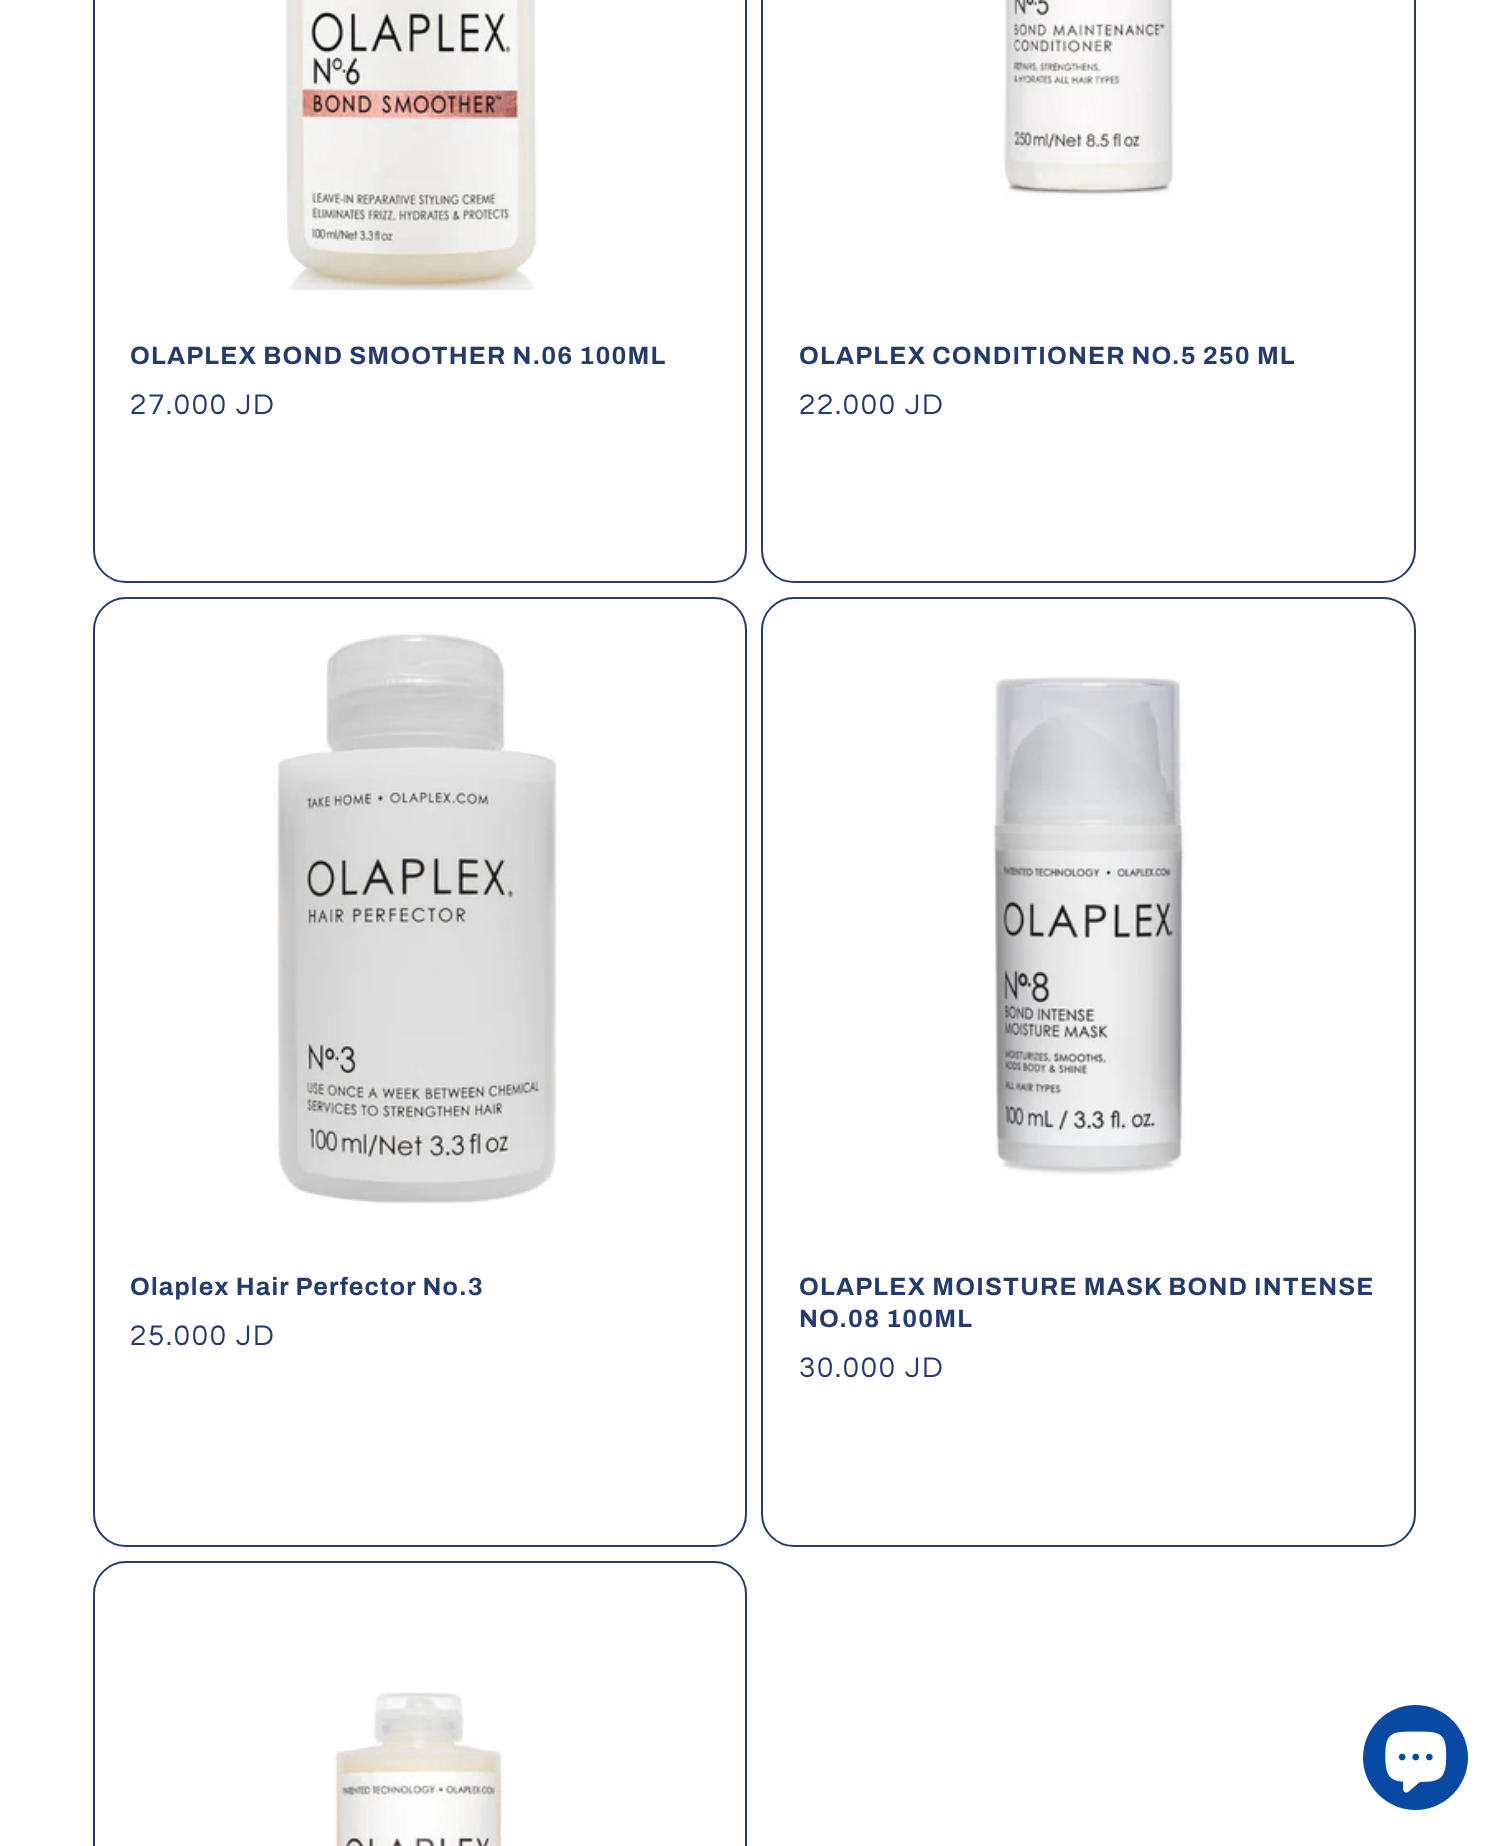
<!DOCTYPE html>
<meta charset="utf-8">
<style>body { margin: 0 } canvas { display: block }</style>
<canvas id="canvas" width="1506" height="1846"></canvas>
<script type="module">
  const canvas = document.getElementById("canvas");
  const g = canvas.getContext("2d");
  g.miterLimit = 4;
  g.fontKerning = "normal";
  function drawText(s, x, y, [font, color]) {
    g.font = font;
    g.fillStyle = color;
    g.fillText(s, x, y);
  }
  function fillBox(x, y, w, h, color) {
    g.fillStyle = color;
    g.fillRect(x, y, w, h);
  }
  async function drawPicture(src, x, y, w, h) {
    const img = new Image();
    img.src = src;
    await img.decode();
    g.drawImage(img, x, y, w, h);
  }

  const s1 = ["bold 25px Archivo", "#253B6E"];
  const s2 = ["29.5px Questrial", "#253B6E"];

  fillBox(0, 0, 1506, 1846, "#FFFFFF");
  g.beginPath();
  g.roundRect(94, -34, 652, 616, 32);
  g.strokeStyle = "#253B6E";
  g.lineWidth = 2;
  g.stroke();
  await drawPicture("pic1.png", 284, 0, 253, 290);
  g.letterSpacing = "1.15px";
  drawText("OLAPLEX BOND SMOOTHER N.06 100ML", 130, 364, s1);
  g.letterSpacing = "1.75px";
  drawText("27.000 JD", 130, 414, s2);
  g.beginPath();
  g.roundRect(762, -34, 653, 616, 32);
  g.stroke();
  await drawPicture("pic2.png", 1003, 0, 171, 198);
  g.letterSpacing = "1.15px";
  drawText("OLAPLEX CONDITIONER NO.5 250 ML", 799, 364, s1);
  g.letterSpacing = "1.75px";
  drawText("22.000 JD", 799, 414, s2);
  g.beginPath();
  g.roundRect(94, 598, 652, 948, 32);
  g.stroke();
  await drawPicture("pic3.png", 274, 632, 283, 572);
  g.letterSpacing = "1.15px";
  drawText("Olaplex Hair Perfector No.3", 130, 1295, s1);
  g.letterSpacing = "1.75px";
  drawText("25.000 JD", 130, 1345, s2);
  g.beginPath();
  g.roundRect(762, 598, 653, 948, 32);
  g.stroke();
  await drawPicture("pic4.png", 993, 677, 194, 498);
  g.letterSpacing = "1.15px";
  drawText("OLAPLEX MOISTURE MASK BOND INTENSE", 799, 1295, s1);
  drawText("NO.08 100ML", 799, 1327, s1);
  g.letterSpacing = "1.75px";
  drawText("30.000 JD", 799, 1377, s2);
  g.beginPath();
  g.roundRect(94, 1562, 652, 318, 32);
  g.stroke();
  await drawPicture("pic5.png", 334, 1692, 170, 154);
  g.fillStyle = "#0849A3";
  g.beginPath();
  g.arc(1415.5, 1757.5, 52.5, 0, Math.PI * 2);
  g.fill();
  await drawPicture("pic6.png", 1385, 1731, 62, 62);
</script>
